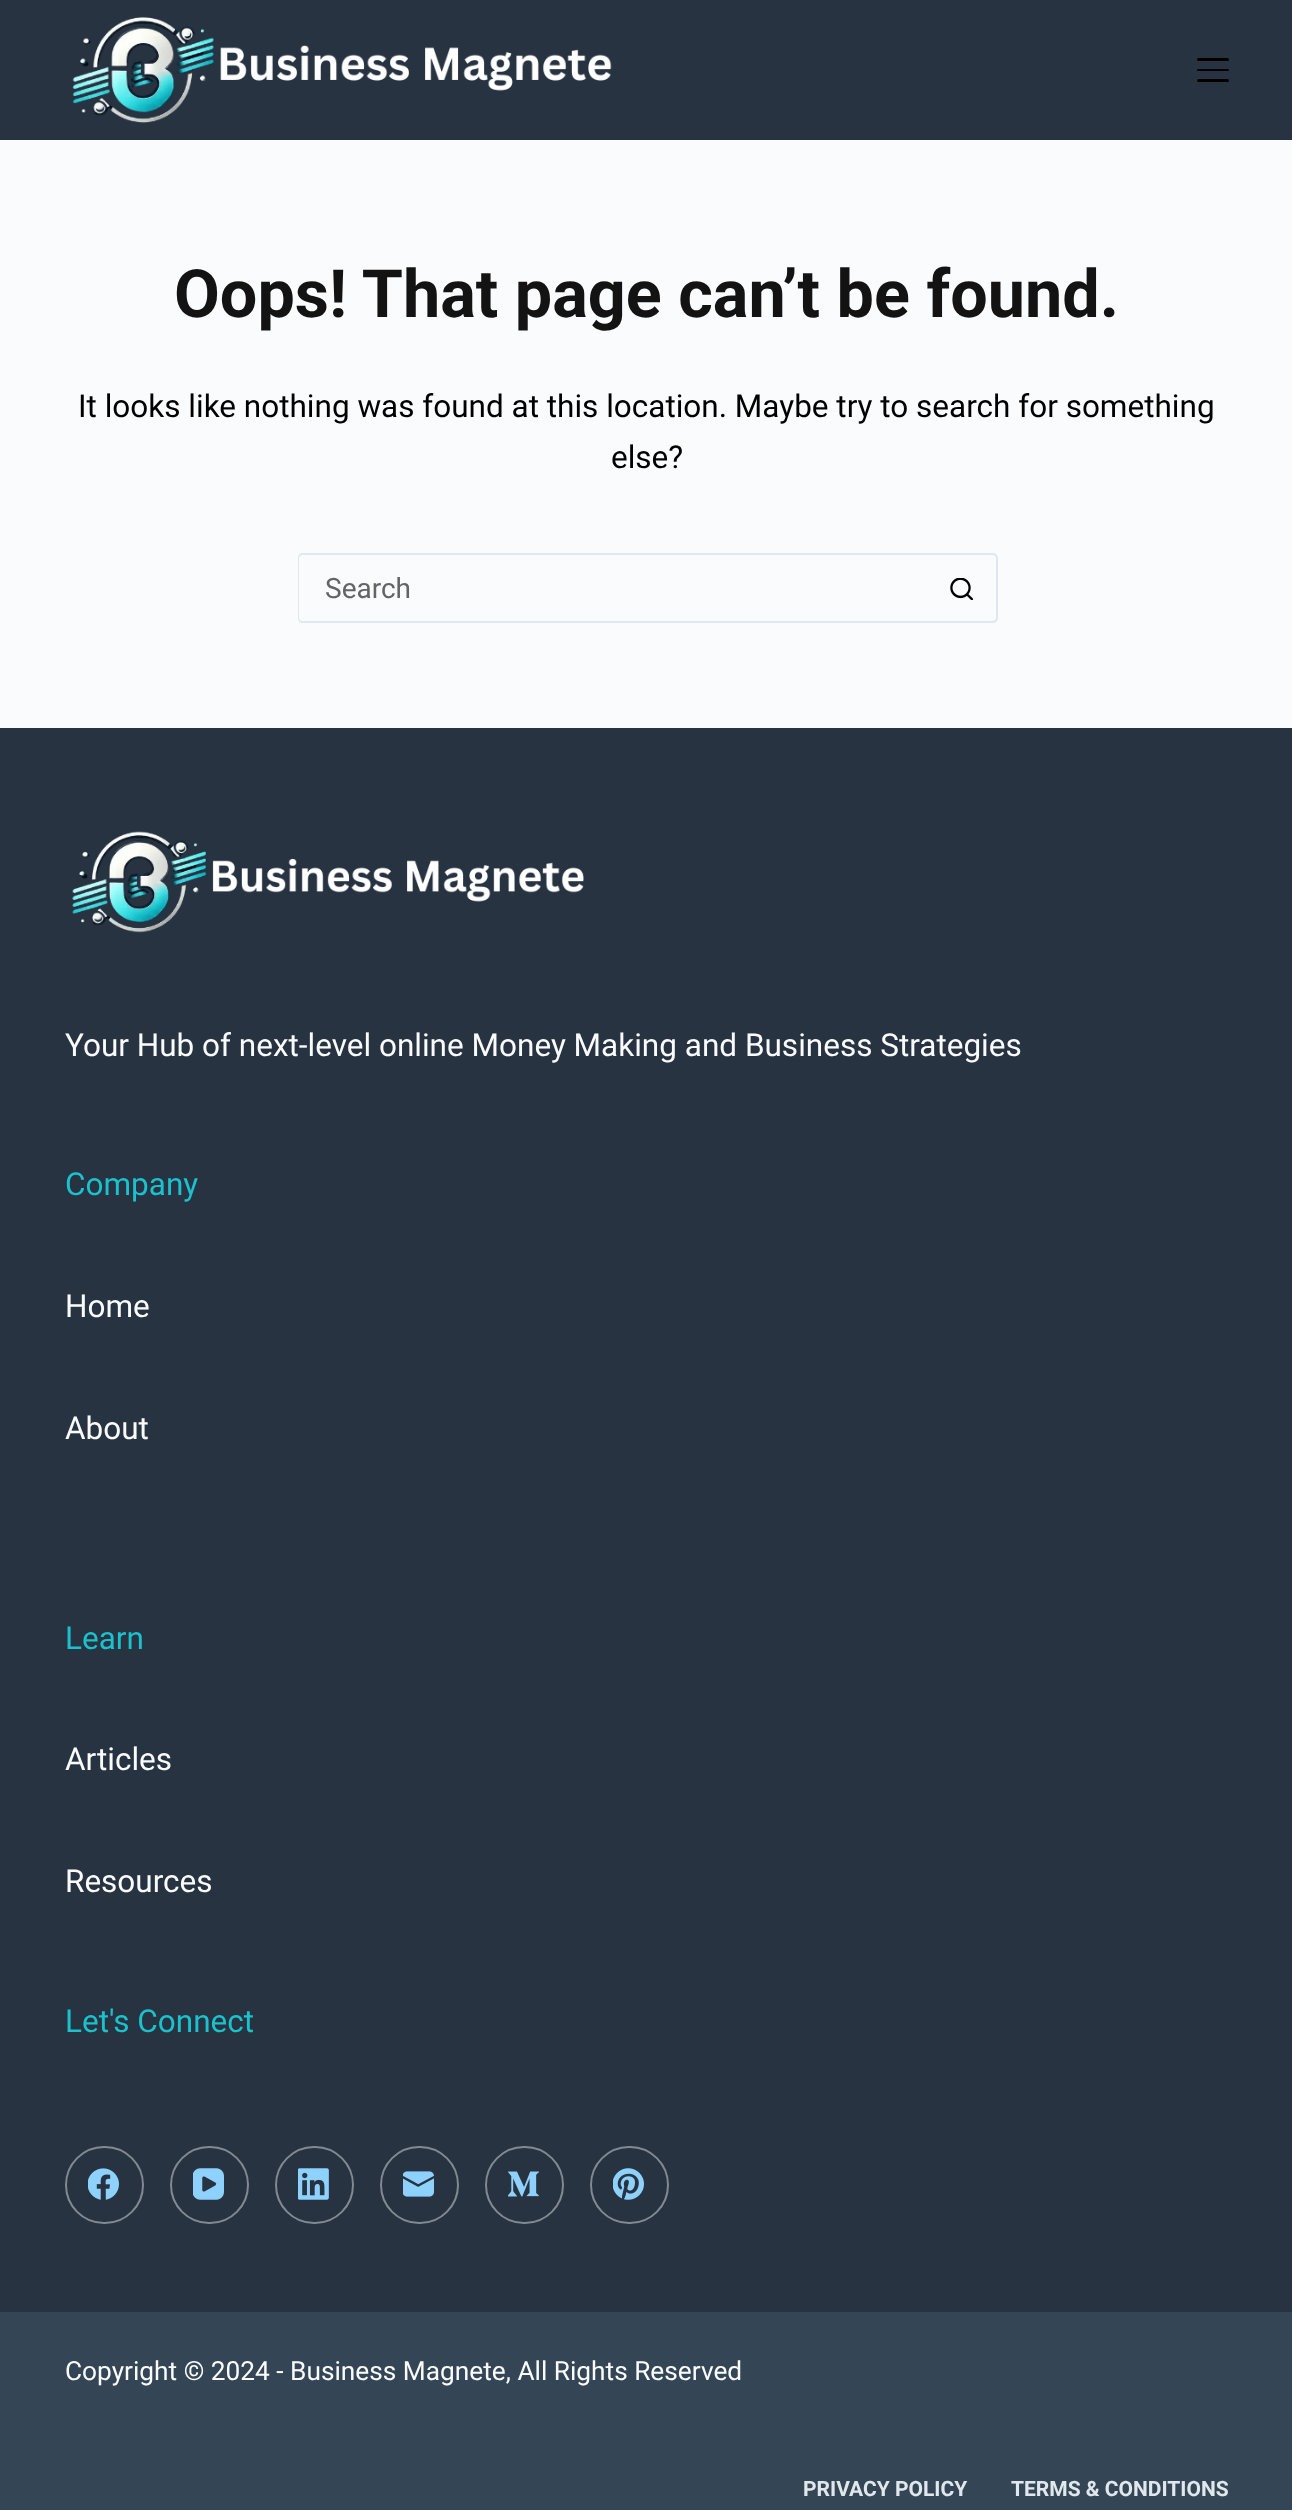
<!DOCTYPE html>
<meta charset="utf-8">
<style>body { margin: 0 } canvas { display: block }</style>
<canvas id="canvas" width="1292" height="2510"></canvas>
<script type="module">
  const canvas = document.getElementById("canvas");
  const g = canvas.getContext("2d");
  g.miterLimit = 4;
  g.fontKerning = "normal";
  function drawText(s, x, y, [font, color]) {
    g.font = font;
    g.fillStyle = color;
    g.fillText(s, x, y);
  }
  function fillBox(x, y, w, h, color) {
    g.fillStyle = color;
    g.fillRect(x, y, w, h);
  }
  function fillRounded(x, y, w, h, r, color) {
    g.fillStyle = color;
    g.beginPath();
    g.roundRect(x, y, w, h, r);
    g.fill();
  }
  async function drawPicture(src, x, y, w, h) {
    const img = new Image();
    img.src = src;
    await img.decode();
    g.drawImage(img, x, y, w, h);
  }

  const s1 = ["bold 66.5px Roboto", "#131313"];
  const s2 = ["31.5px Roboto", "#000000"];
  const s3 = ["28px Roboto", "#646465"];
  const s4 = ["31.5px Roboto", "#FAFBFC"];
  const s5 = ["31.5px Roboto", "#1BC1CC"];
  const s6 = ["26.25px Roboto", "#FAFBFC"];
  const s7 = ["bold 21px Roboto", "#E1E8ED"];

  fillBox(0, 0, 1292, 2510, "#FAFBFC");
  fillBox(0, 0, 1292, 140, "#273341");
  await drawPicture("pic1.png", 72, 17, 540, 106);
  fillRounded(1197, 58, 32, 3, 1.5, "#000000");
  fillRounded(1197, 69, 32, 2, 1, "#000000");
  fillRounded(1197, 79, 32, 3, 1.5, "#000000");
  drawText("Oops! That page can’t be found.", 174, 317, s1);
  drawText("It looks like nothing was found at this location. Maybe try to search for something", 78, 417, s2);
  drawText("else?", 611, 468, s2);
  g.fillStyle = "#E1E8ED";
  g.beginPath();
  g.moveTo(303, 553);
  g.lineTo(928, 553);
  g.lineTo(928, 623);
  g.lineTo(303, 623);
  g.bezierCurveTo(300, 623, 298, 621, 298, 618);
  g.lineTo(298, 558);
  g.bezierCurveTo(298, 555, 300, 553, 303, 553);
  g.closePath();
  g.moveTo(303, 555);
  g.lineTo(928, 555);
  g.lineTo(928, 621);
  g.lineTo(303, 621);
  g.bezierCurveTo(301, 621, 299, 620, 299, 618);
  g.lineTo(299, 558);
  g.bezierCurveTo(299, 556, 301, 555, 303, 555);
  g.closePath();
  g.fill("evenodd");
  drawText("Search", 325, 598, s3);
  g.fillStyle = "#E1E8ED";
  g.beginPath();
  g.moveTo(928, 553);
  g.lineTo(992, 553);
  g.bezierCurveTo(995, 553, 998, 555, 998, 558);
  g.lineTo(998, 618);
  g.bezierCurveTo(998, 621, 995, 623, 992, 623);
  g.lineTo(928, 623);
  g.closePath();
  g.moveTo(928, 555);
  g.lineTo(992, 555);
  g.bezierCurveTo(994, 555, 996, 556, 996, 558);
  g.lineTo(996, 618);
  g.bezierCurveTo(996, 620, 994, 621, 992, 621);
  g.lineTo(928, 621);
  g.closePath();
  g.fill("evenodd");
  await drawPicture("pic2.png", 950, 578, 23, 22);
  fillBox(0, 728, 1292, 1584, "#273341");
  await drawPicture("pic3.png", 72, 831, 512, 102);
  drawText("Your Hub of next-level online Money Making and Business Strategies", 65, 1056, s4);
  drawText("Company", 65, 1195, s5);
  drawText("Home", 65, 1317, s4);
  drawText("About", 65, 1439, s4);
  drawText("Learn", 65, 1649, s5);
  drawText("Articles", 65, 1770, s4);
  drawText("Resources", 65, 1892, s4);
  drawText("Let's Connect", 65, 2032, s5);
  g.beginPath();
  g.roundRect(66, 2147, 77, 76, 38);
  g.strokeStyle = "#818993";
  g.lineWidth = 2;
  g.stroke();
  await drawPicture("pic4.png", 88, 2168, 31, 32);
  g.beginPath();
  g.roundRect(171, 2147, 77, 76, 38);
  g.stroke();
  await drawPicture("pic5.png", 193, 2168, 31, 32);
  g.beginPath();
  g.roundRect(276, 2147, 77, 76, 38);
  g.stroke();
  await drawPicture("pic6.png", 298, 2168, 31, 32);
  g.beginPath();
  g.roundRect(381, 2147, 77, 76, 38);
  g.stroke();
  await drawPicture("pic7.png", 403, 2171, 31, 26);
  g.beginPath();
  g.roundRect(486, 2147, 77, 76, 38);
  g.stroke();
  await drawPicture("pic8.png", 508, 2171, 31, 26);
  g.beginPath();
  g.roundRect(591, 2147, 77, 76, 38);
  g.stroke();
  await drawPicture("pic9.png", 613, 2168, 31, 32);
  fillBox(0, 2312, 1292, 198, "#344555");
  drawText("Copyright © 2024 - Business Magnete, All Rights Reserved", 65, 2380, s6);
  drawText("PRIVACY POLICY", 803, 2496, s7);
  drawText("TERMS & CONDITIONS", 1011, 2496, s7);
</script>
